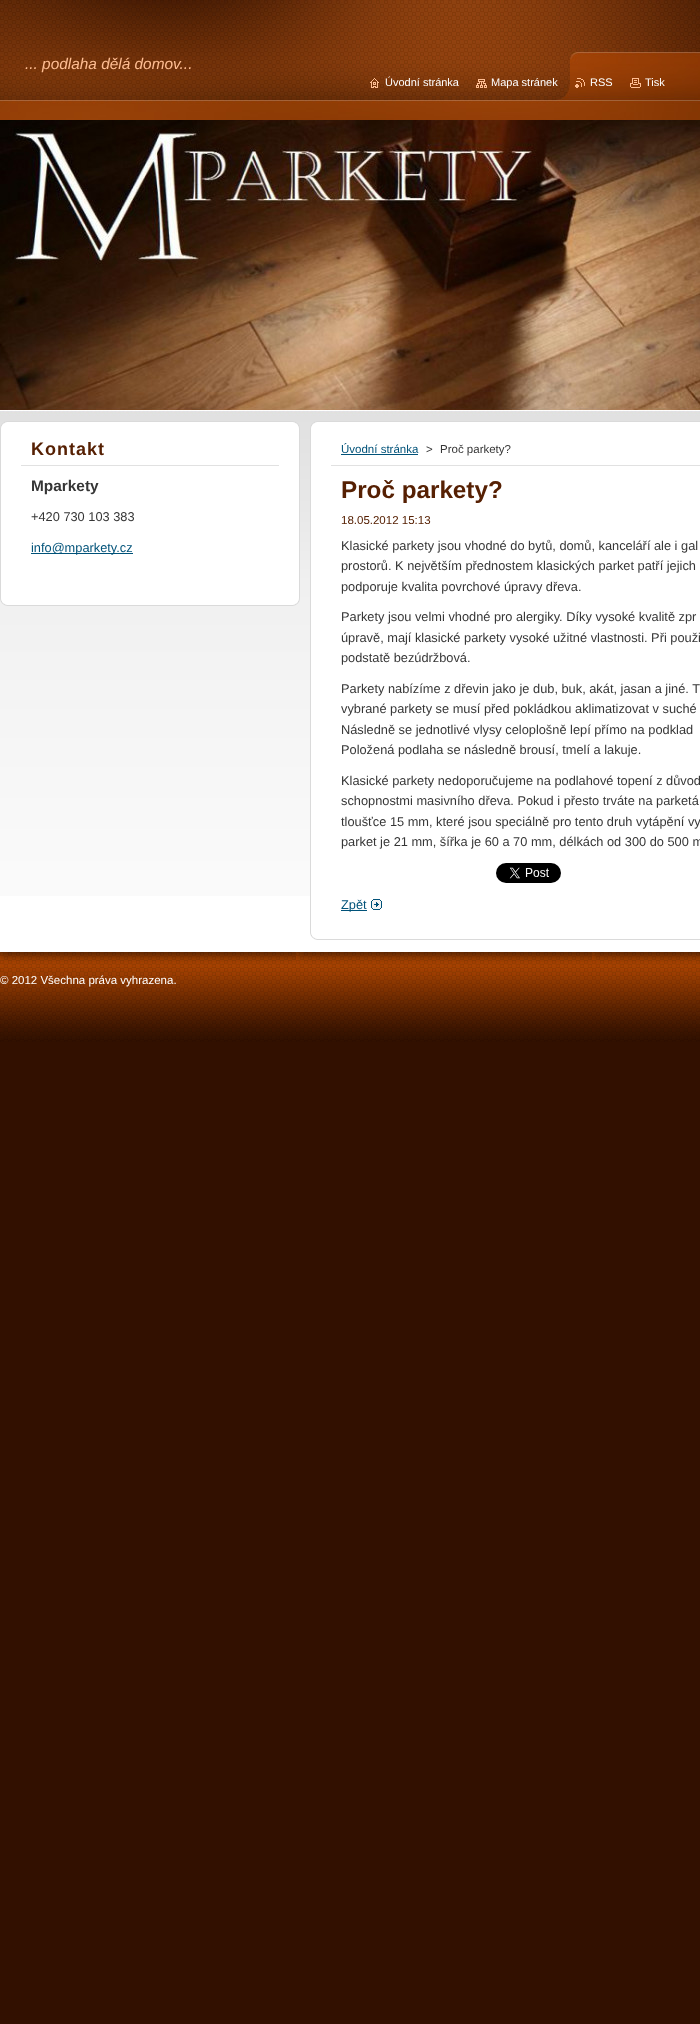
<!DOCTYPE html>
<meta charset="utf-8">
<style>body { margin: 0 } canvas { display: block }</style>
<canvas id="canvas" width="700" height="2024"></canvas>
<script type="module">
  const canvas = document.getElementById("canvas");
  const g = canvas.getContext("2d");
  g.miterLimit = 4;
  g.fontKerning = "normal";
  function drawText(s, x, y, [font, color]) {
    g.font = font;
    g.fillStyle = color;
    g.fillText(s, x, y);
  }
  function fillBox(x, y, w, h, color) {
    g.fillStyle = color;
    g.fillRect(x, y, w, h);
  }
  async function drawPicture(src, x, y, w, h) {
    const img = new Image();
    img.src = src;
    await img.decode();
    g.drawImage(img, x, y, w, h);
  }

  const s1 = ["italic 15.4px Liberation Sans", "#FFBE93"];
  const s2 = ["11px Liberation Sans", "#FFFFFF"];
  const s3 = ["bold 18px Liberation Sans", "#562003"];
  const s4 = ["bold 15.4px Liberation Sans", "#363636"];
  const s5 = ["12.8px Liberation Sans", "#363636"];
  const s6 = ["12.8px Liberation Sans", "#005279"];
  const s7 = ["11.5px Liberation Sans", "#005279"];
  const s8 = ["11.5px Liberation Sans", "#363636"];
  const s9 = ["bold 24.25px Liberation Sans", "#562003"];
  const s10 = ["11.5px Liberation Sans", "#562003"];
  const s11 = ["11.5px Liberation Sans", "#FFFFFF"];

  fillBox(0, 0, 700, 2024, "#321000");
  fillBox(0, 896, 700, 56, "#FFFFFF");
  await drawPicture("pic1.png", 0, 410, 700, 486);
  await drawPicture("pic2.png", 0, 0, 700, 120);
  drawText("... podlaha dělá domov...", 25, 69, s1);
  await drawPicture("pic3.png", 0, 120, 700, 290);
  await drawPicture("pic4.png", 370, 78, 9, 10);
  drawText("Úvodní stránka", 385, 86, s2);
  await drawPicture("pic5.png", 476, 79, 11, 9);
  drawText("Mapa stránek", 491, 86, s2);
  await drawPicture("pic6.png", 575, 78, 10, 10);
  drawText("RSS", 590, 86, s2);
  await drawPicture("pic7.png", 630, 78, 11, 10);
  drawText("Tisk", 645, 86, s2);
  await drawPicture("pic8.png", 0, 421, 300, 8);
  fillBox(1, 429, 298, 169, "#FFFFFF");
  fillBox(299, 429, 1, 169, "#DADADA");
  fillBox(0, 429, 1, 169, "#DADADA");
  fillBox(21, 465, 258, 1, "#E1E1E1");
  g.letterSpacing = "1px";
  drawText("Kontakt", 31, 455, s3);
  g.letterSpacing = "0px";
  drawText("Mparkety", 31, 491, s4);
  drawText("+420 730 103 383", 31, 521, s5);
  fillBox(31, 553, 102, 1, "#005279");
  drawText("info@mparkety.cz", 31, 552, s6);
  await drawPicture("pic9.png", 0, 598, 300, 8);
  await drawPicture("pic10.png", 310, 421, 390, 8);
  fillBox(311, 429, 389, 467, "#FFFFFF");
  fillBox(310, 429, 1, 503, "#DADADA");
  fillBox(331, 465, 369, 1, "#E1E1E1");
  drawText("Úvodní stránka", 341, 453, s7);
  fillBox(341, 454, 77, 1, "#005279");
  drawText(">", 426, 453, s8);
  drawText("Proč parkety?", 440, 453, s8);
  drawText("Proč parkety?", 341, 498, s9);
  drawText("18.05.2012 15:13", 341, 524, s10);
  drawText("Klasické parkety jsou vhodné do bytů, domů, kanceláří ale i gal", 341, 550, s5);
  drawText("prostorů. K největším přednostem klasických parket patří jejich", 341, 570, s5);
  drawText("podporuje kvalita povrchové úpravy dřeva.", 341, 591, s5);
  drawText("Parkety jsou velmi vhodné pro alergiky. Díky vysoké kvalitě zpr", 341, 621, s5);
  drawText("úpravě, mají klasické parkety vysoké užitné vlastnosti. Při použi", 341, 642, s5);
  drawText("podstatě bezúdržbová.", 341, 662, s5);
  drawText("Parkety nabízíme z dřevin jako je dub, buk, akát, jasan a jiné. T", 341, 693, s5);
  drawText("vybrané parkety se musí před pokládkou aklimatizovat v suché", 341, 713, s5);
  drawText("Následně se jednotlivé vlysy celoplošně lepí přímo na podklad", 341, 734, s5);
  drawText("Položená podlaha se následně brousí, tmelí a lakuje.", 341, 754, s5);
  drawText("Klasické parkety nedoporučujeme na podlahové topení z důvod", 341, 785, s5);
  drawText("schopnostmi masivního dřeva. Pokud i přesto trváte na parketá", 341, 805, s5);
  drawText("tloušťce 15 mm, které jsou speciálně pro tento druh vytápění vy", 341, 826, s5);
  drawText("parket je 21 mm, šířka je 60 a 70 mm, délkách od 300 do 500 m", 341, 846, s5);
  await drawPicture("pic11.png", 496, 863, 65, 20);
  await drawPicture("pic12.png", 371, 899, 11, 11);
  fillBox(341, 910, 26, 1, "#005279");
  drawText("Zpět", 341, 909, s6);
  await drawPicture("pic13.png", 310, 932, 390, 8);
  await drawPicture("pic14.png", 0, 952, 700, 90);
  drawText("© 2012 Všechna práva vyhrazena.", 0, 984, s11);
</script>
